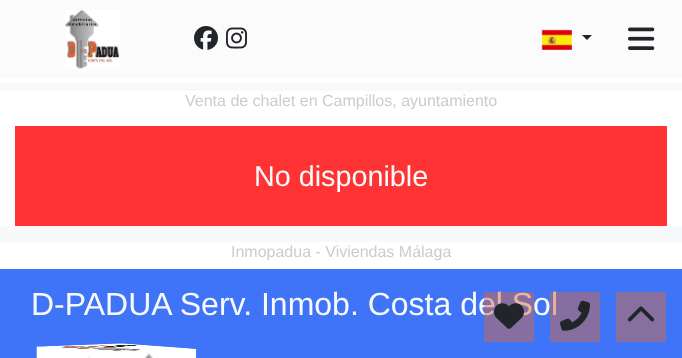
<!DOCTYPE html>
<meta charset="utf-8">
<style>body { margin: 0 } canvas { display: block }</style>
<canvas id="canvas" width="682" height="358"></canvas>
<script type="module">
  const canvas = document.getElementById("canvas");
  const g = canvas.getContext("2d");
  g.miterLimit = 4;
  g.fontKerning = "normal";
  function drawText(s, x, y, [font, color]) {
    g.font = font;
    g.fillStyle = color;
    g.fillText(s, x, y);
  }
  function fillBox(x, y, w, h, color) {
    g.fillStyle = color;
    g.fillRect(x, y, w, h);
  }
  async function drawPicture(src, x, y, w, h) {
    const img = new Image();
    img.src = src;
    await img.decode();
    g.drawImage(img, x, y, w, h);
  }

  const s1 = ["16px Liberation Sans", "#CCCCCC"];
  const s2 = ["28.75px Liberation Sans", "#F8F9FA"];
  const s3 = ["32px Liberation Sans", "#F8F9FA"];

  fillBox(0, 0, 682, 358, "#FFFFFF");
  fillBox(0, 0, 682, 78, "#FBFBFC");
  await drawPicture("pic1.png", 65, 10, 55, 59);
  await drawPicture("pic2.png", 194, 26, 24, 24);
  await drawPicture("pic3.png", 226, 27, 21, 22);
  await drawPicture("pic4.png", 541, 29, 31, 21);
  g.fillStyle = "#212529";
  g.beginPath();
  g.moveTo(582, 35);
  g.lineTo(592, 35);
  g.lineTo(587, 40);
  g.closePath();
  g.fill();
  await drawPicture("pic5.png", 628, 27, 27, 23);
  fillBox(0, 83, 682, 159, "#F8F9FA");
  fillBox(0, 91, 682, 135, "#FFFFFF");
  drawText("Venta de chalet en Campillos, ayuntamiento", 185, 106, s1);
  fillBox(15, 126, 652, 100, "#FF3333");
  drawText("No disponible", 254, 186, s2);
  drawText("Inmopadua - Viviendas Málaga", 231, 257, s1);
  fillBox(0, 269, 682, 89, "#3F74F9");
  drawText("D-PADUA Serv. Inmob. Costa del Sol", 31, 315, s3);
  await drawPicture("pic6.png", 36, 343, 86, 15);
  await drawPicture("pic10.png", 121, 349, 76, 9);
  await drawPicture("pic7.png", 121, 343, 75, 15);
  await drawPicture("pic9.png", 36, 346, 55, 12);
  await drawPicture("pic8.png", 46, 344, 143, 8);
  fillBox(484, 292, 50, 50, "rgba(217, 105, 59, 0.47)");
  await drawPicture("pic11.png", 494, 303, 30, 26);
  fillBox(550, 292, 50, 50, "rgba(217, 105, 59, 0.47)");
  await drawPicture("pic12.png", 560, 300, 30, 31);
  fillBox(616, 292, 50, 50, "#876FA0");
  await drawPicture("pic13.png", 627, 306, 28, 16);
</script>
